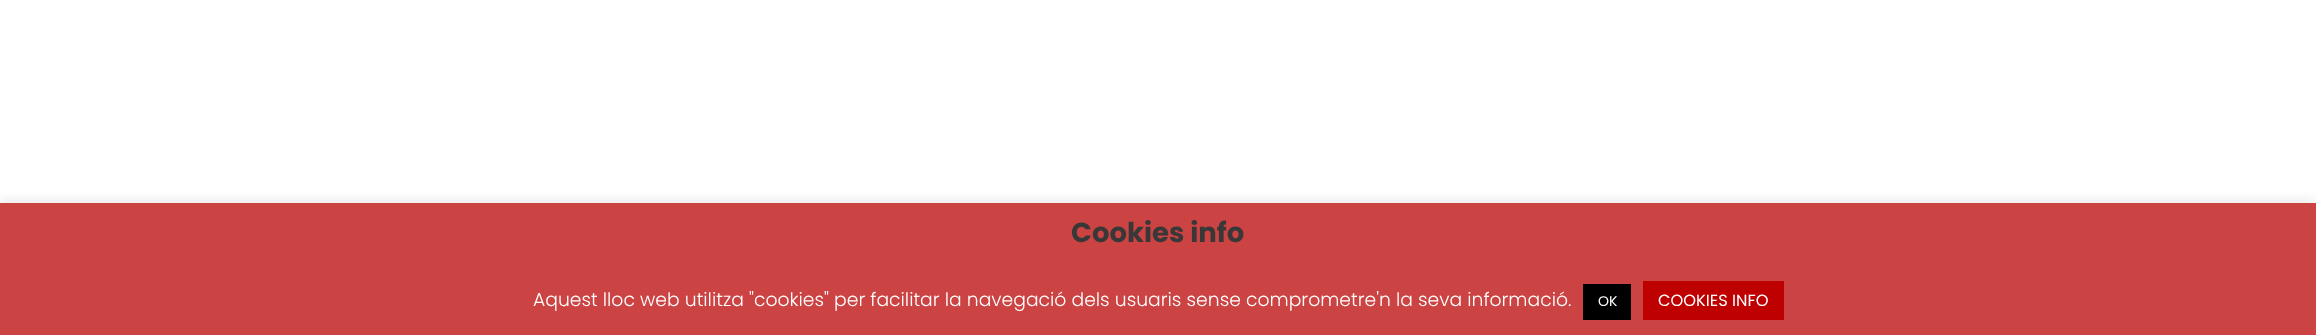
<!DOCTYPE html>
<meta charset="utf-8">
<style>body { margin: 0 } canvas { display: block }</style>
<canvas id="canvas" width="2316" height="335"></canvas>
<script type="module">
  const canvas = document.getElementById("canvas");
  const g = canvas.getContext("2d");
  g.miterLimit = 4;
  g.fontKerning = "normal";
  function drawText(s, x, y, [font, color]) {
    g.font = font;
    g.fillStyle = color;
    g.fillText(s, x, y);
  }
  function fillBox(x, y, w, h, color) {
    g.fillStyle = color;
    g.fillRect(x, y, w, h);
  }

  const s1 = ["bold 27.5px Poppins", "#383838"];
  const s2 = ["300 18.75px Poppins", "#FFFFFF"];
  const s3 = ["14px Poppins", "#FFFFFF"];
  const s4 = ["16.25px Poppins", "#FFFFFF"];

  fillBox(0, 0, 2316, 335, "#FFFFFF");
  g.fillStyle = "rgba(172, 171, 171, 0.3)";
  g.filter = "blur(6px)";
  g.beginPath();
  g.rect(0, 201, 2316, 133);
  g.fill();
  g.filter = "none";
  fillBox(0, 203, 2316, 132, "#CC4343");
  drawText("Cookies info", 1071, 242, s1);
  drawText("Aquest lloc web utilitza \"cookies\" per facilitar la navegació dels usuaris sense comprometre'n la seva informació.", 533, 306, s2);
  fillBox(1583, 284, 48, 36, "#000000");
  drawText("OK", 1598, 306, s3);
  fillBox(1643, 281, 141, 39, "#BF0000");
  drawText("COOKIES INFO", 1658, 306, s4);
</script>
